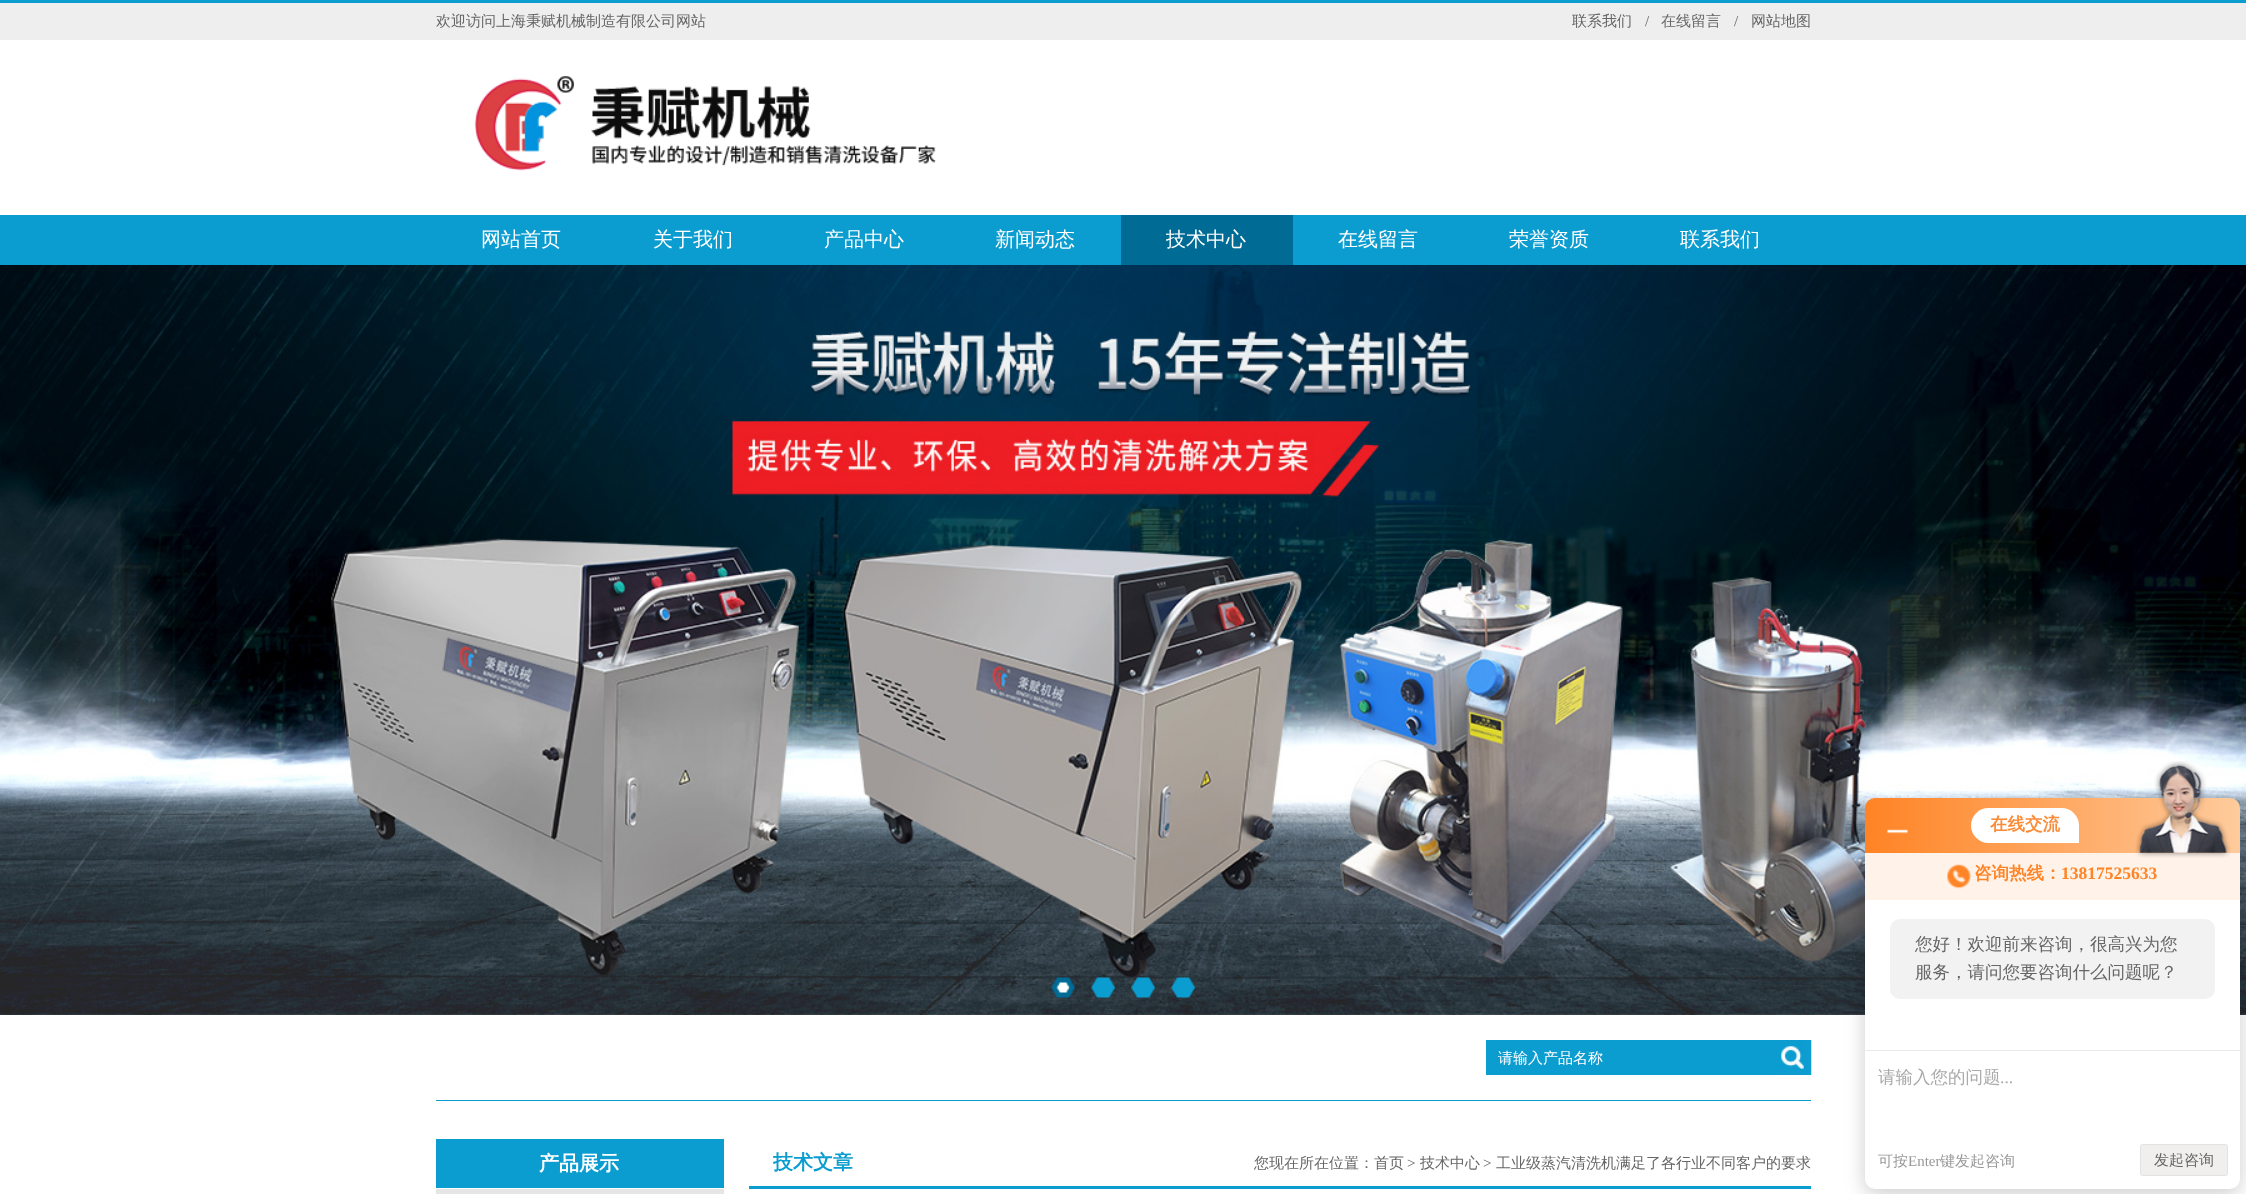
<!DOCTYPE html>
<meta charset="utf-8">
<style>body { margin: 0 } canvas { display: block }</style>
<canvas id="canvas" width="2246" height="1194"></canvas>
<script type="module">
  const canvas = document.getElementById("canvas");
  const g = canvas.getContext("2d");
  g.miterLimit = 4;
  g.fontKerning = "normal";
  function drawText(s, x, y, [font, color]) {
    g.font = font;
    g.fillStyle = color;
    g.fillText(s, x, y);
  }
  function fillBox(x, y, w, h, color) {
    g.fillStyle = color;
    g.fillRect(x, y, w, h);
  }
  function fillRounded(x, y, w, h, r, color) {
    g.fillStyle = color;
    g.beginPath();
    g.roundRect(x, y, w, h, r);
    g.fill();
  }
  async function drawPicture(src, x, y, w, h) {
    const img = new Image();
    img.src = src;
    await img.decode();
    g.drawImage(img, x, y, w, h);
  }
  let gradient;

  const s1 = ["500 15px WenQuanYi Zen Hei", "#666666"];
  const s2 = ["15px Liberation Serif", "#666666"];
  const s3 = ["500 20px WenQuanYi Zen Hei", "#FFFFFF"];
  const s4 = ["500 15px WenQuanYi Zen Hei", "#FFFFFF"];
  const s5 = ["bold 17.5px WenQuanYi Zen Hei", "#FB8B36"];
  const s6 = ["bold 17.5px WenQuanYi Zen Hei", "#FF8426"];
  const s7 = ["bold 17.5px Liberation Serif", "#FF8426"];
  const s8 = ["500 17.5px WenQuanYi Zen Hei", "#666666"];
  const s9 = ["500 17.5px WenQuanYi Zen Hei", "#AAAAAA"];
  const s10 = ["17.5px Liberation Serif", "#AAAAAA"];
  const s11 = ["500 15px WenQuanYi Zen Hei", "#999999"];
  const s12 = ["15px Liberation Serif", "#999999"];
  const s13 = ["bold 20px WenQuanYi Zen Hei", "#FFFFFF"];
  const s14 = ["bold 20px WenQuanYi Zen Hei", "#0C9DD0"];

  fillBox(0, 0, 2246, 1194, "#FFFFFF");
  fillBox(0, 3, 2246, 37, "#EEEEEE");
  fillBox(0, 0, 2246, 3, "#0C9DD0");
  drawText("欢迎访问上海秉赋机械制造有限公司网站", 436, 26, s1);
  drawText("联系我们", 1572, 26, s1);
  drawText("/", 1645, 26, s2);
  drawText("在线留言", 1661, 26, s1);
  drawText("/", 1734, 26, s2);
  drawText("网站地图", 1751, 26, s1);
  await drawPicture("pic1.png", 474, 76, 462, 95);
  fillBox(0, 215, 2246, 50, "#0C9DD0");
  drawText("网站首页", 481, 246, s3);
  drawText("关于我们", 653, 246, s3);
  drawText("产品中心", 824, 246, s3);
  drawText("新闻动态", 995, 246, s3);
  fillBox(1121, 215, 172, 50, "#006B95");
  drawText("技术中心", 1166, 246, s3);
  drawText("在线留言", 1338, 246, s3);
  drawText("荣誉资质", 1509, 246, s3);
  drawText("联系我们", 1680, 246, s3);
  await drawPicture("pic2.png", 0, 265, 2246, 750);
  await drawPicture("pic3.png", 1051, 977, 24, 21);
  await drawPicture("pic4.png", 1091, 977, 24, 21);
  await drawPicture("pic5.png", 1131, 977, 24, 21);
  await drawPicture("pic6.png", 1171, 977, 24, 21);
  fillBox(436, 1100, 1375, 1, "#0C9DD0");
  fillBox(1486, 1040, 288, 35, "#0C9DD0");
  drawText("请输入产品名称", 1498, 1063, s4);
  await drawPicture("pic7.png", 1774, 1040, 38, 35);
  g.fillStyle = "rgba(0, 0, 0, 0.2)";
  g.filter = "blur(10px)";
  g.beginPath();
  g.roundRect(1865, 858, 375, 336, 10);
  g.fill();
  g.filter = "none";
  gradient = g.createLinearGradient(1865, 825, 2240, 825);
  gradient.addColorStop(0, "#FF8324");
  gradient.addColorStop(1, "#FECB9C");
  g.fillStyle = gradient;
  g.beginPath();
  g.roundRect(1865, 798, 375, 55, [10, 10, 0, 0]);
  g.fill();
  await drawPicture("pic8.png", 1887, 829, 21, 5);
  g.fillStyle = "#FFFFFF";
  g.beginPath();
  g.roundRect(1971, 808, 108, 35, [17.5, 17.5, 0, 17.5]);
  g.fill();
  drawText("在线交流", 1990, 830, s5);
  g.fillStyle = "#FFFFFF";
  g.beginPath();
  g.roundRect(1865, 853, 375, 336, [0, 0, 10, 10]);
  g.fill();
  fillBox(1865, 853, 375, 47, "#FFF3E9");
  await drawPicture("pic9.png", 2135, 761, 96, 97);
  await drawPicture("pic10.png", 1947, 864, 24, 25);
  drawText("咨询热线：", 1974, 879, s6);
  drawText("13817525633", 2061, 879, s7);
  fillRounded(1890, 919, 325, 80, 10, "#F2F2F2");
  drawText("您好！欢迎前来咨询，很高兴为您", 1915, 950, s8);
  drawText("服务，请问您要咨询什么问题呢？", 1915, 978, s8);
  fillBox(1865, 1050, 375, 1, "#EAEAEA");
  drawText("请输入您的问题", 1878, 1083, s9);
  drawText("...", 2000, 1083, s10);
  drawText("可按", 1878, 1166, s11);
  drawText("Enter", 1908, 1166, s12);
  drawText("键发起咨询", 1940, 1166, s11);
  g.fillStyle = "#F0EFED";
  g.beginPath();
  g.roundRect(2140.5, 1144.5, 87, 31, 2);
  g.fill();
  g.strokeStyle = "#E2E2E2";
  g.stroke();
  drawText("发起咨询", 2154, 1165, s1);
  fillBox(436, 1139, 288, 49, "#0C9DD0");
  drawText("产品展示", 539, 1170, s13);
  fillBox(436, 1189, 288, 5, "#E6E6E6");
  fillBox(749, 1186, 1062, 3, "#0C9DD0");
  drawText("技术文章", 773, 1169, s14);
  drawText("您现在所在位置：首页", 1254, 1168, s1);
  drawText(">", 1407, 1168, s2);
  drawText("技术中心", 1420, 1168, s1);
  drawText(">", 1483, 1168, s2);
  drawText("工业级蒸汽清洗机满足了各行业不同客户的要求", 1496, 1168, s1);
</script>
